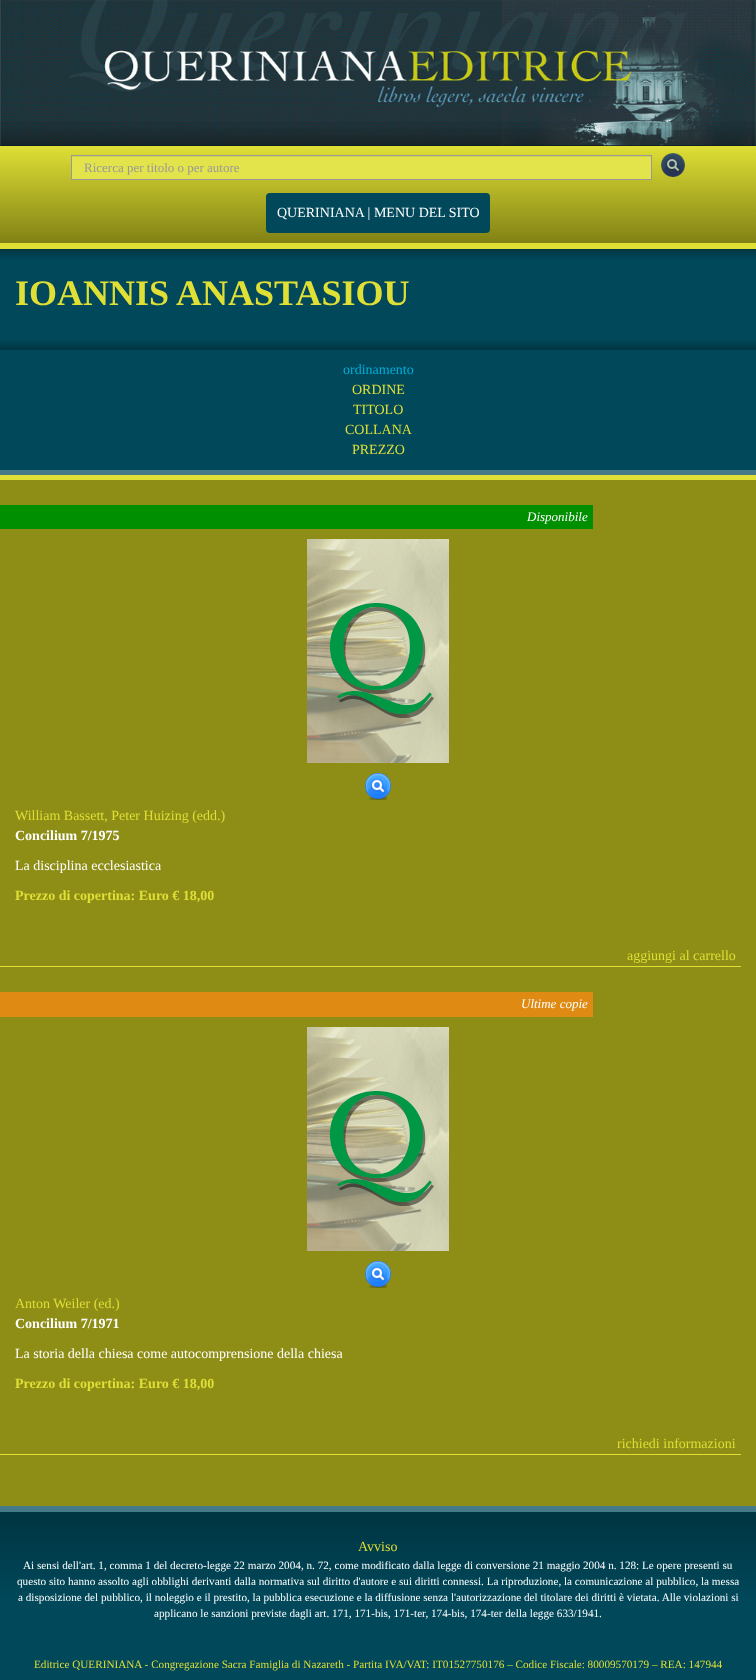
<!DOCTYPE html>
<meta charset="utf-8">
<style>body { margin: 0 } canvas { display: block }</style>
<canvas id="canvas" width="756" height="1680"></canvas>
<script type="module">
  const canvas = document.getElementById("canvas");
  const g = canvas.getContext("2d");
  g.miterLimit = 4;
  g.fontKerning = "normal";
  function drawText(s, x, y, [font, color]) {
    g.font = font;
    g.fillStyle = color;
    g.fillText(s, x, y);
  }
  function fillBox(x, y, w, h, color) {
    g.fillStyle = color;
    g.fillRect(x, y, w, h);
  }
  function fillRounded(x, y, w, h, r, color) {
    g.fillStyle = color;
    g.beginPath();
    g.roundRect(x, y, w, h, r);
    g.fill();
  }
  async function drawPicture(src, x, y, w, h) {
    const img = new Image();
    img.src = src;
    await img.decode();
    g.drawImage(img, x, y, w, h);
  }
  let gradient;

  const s1 = ["13px Liberation Serif", "#999999"];
  const s2 = ["14px Liberation Serif", "#FFFFFF"];
  const s3 = ["bold 36px Liberation Serif", "#DFDF36"];
  const s4 = ["14px Liberation Serif", "#00AEDA"];
  const s5 = ["14px Liberation Serif", "#DFDF36"];
  const s6 = ["italic 13px Liberation Serif", "#FFFFFF"];
  const s7 = ["bold 14px Liberation Serif", "#FFFFFF"];
  const s8 = ["bold 14px Liberation Serif", "#DFDF36"];
  const s9 = ["11.2px Liberation Serif", "#FFFFFF"];
  const s10 = ["11.2px Liberation Serif", "#DFDF36"];

  fillBox(0, 0, 756, 1680, "#FFFFFF");
  await drawPicture("pic1.png", 0, 0, 756, 146);
  gradient = g.createLinearGradient(378, 146, 378, 243);
  gradient.addColorStop(0, "#DFDF36");
  gradient.addColorStop(1, "#818115");
  g.fillStyle = gradient;
  g.fillRect(0, 146, 756, 97);
  fillBox(0, 243, 756, 6, "#DFDF36");
  fillBox(72, 157, 579, 22, "#E3E34C");
  fillBox(72, 156, 579, 1, "#D2D246");
  g.strokeStyle = "#999999";
  g.strokeRect(71.5, 155.5, 580, 24);
  drawText("Ricerca per titolo o per autore", 84, 172, s1);
  await drawPicture("pic2.png", 661, 153, 24, 24);
  fillRounded(266, 193, 224, 40, 4, "#00485A");
  drawText("QUERINIANA | MENU DEL SITO", 277, 217, s2);
  gradient = g.createLinearGradient(378, 350, 378, 249);
  gradient.addColorStop(0, "#003441");
  gradient.addColorStop(0.1, "#00485A");
  gradient.addColorStop(0.9, "#00485A");
  gradient.addColorStop(1, "#003441");
  g.fillStyle = gradient;
  g.fillRect(0, 249, 756, 101);
  drawText("IOANNIS ANASTASIOU", 15, 305, s3);
  fillBox(0, 480, 756, 1026, "#8E8E17");
  fillBox(0, 350, 756, 120, "#00485A");
  fillBox(0, 470, 756, 5, "#467A88");
  drawText("ordinamento", 343, 374, s4);
  drawText("ORDINE", 352, 394, s5);
  drawText("TITOLO", 353, 414, s5);
  drawText("COLLANA", 345, 434, s5);
  drawText("PREZZO", 352, 454, s5);
  fillBox(0, 475, 756, 5, "#DFDF36");
  fillBox(0, 505, 593, 24, "#008F00");
  drawText("Disponibile", 527, 521, s6);
  await drawPicture("pic3.png", 307, 539, 142, 224);
  await drawPicture("pic4.png", 365, 773, 26, 27);
  drawText("William Bassett, Peter Huizing (edd.)", 15, 820, s5);
  drawText("Concilium 7/1975", 15, 840, s7);
  drawText("La disciplina ecclesiastica", 15, 870, s2);
  drawText("Prezzo di copertina: Euro € 18,00", 15, 900, s8);
  fillBox(0, 966, 741, 1, "#DFDF36");
  drawText("aggiungi al carrello", 627, 960, s5);
  fillBox(0, 992, 593, 25, "#DF8A13");
  drawText("Ultime copie", 521, 1008, s6);
  await drawPicture("pic3.png", 307, 1027, 142, 224);
  await drawPicture("pic4.png", 365, 1261, 26, 27);
  drawText("Anton Weiler (ed.)", 15, 1308, s5);
  drawText("Concilium 7/1971", 15, 1328, s7);
  drawText("La storia della chiesa come autocomprensione della chiesa", 15, 1358, s2);
  drawText("Prezzo di copertina: Euro € 18,00", 15, 1388, s8);
  fillBox(0, 1454, 741, 1, "#DFDF36");
  drawText("richiedi informazioni", 617, 1448, s5);
  gradient = g.createLinearGradient(378, 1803, 378, 1512);
  gradient.addColorStop(0.7, "#00485A");
  gradient.addColorStop(1, "#003441");
  g.fillStyle = gradient;
  g.fillRect(0, 1512, 756, 168);
  fillBox(0, 1506, 756, 6, "#467A88");
  drawText("Avviso", 358, 1551, s5);
  drawText("Ai sensi dell'art. 1, comma 1 del decreto-legge 22 marzo 2004, n. 72, come modificato dalla legge di conversione 21 maggio 2004 n. 128: Le opere presenti su", 23, 1569, s9);
  drawText("questo sito hanno assolto agli obblighi derivanti dalla normativa sul diritto d'autore e sui diritti connessi. La riproduzione, la comunicazione al pubblico, la messa", 17, 1585, s9);
  drawText("a disposizione del pubblico, il noleggio e il prestito, la pubblica esecuzione e la diffusione senza l'autorizzazione del titolare dei diritti è vietata. Alle violazioni si", 18, 1601, s9);
  drawText("applicano le sanzioni previste dagli art. 171, 171-bis, 171-ter, 174-bis, 174-ter della legge 633/1941.", 154, 1617, s9);
  drawText("Editrice QUERINIANA - Congregazione Sacra Famiglia di Nazareth - Partita IVA/VAT: IT01527750176 – Codice Fiscale: 80009570179 – REA: 147944", 34, 1668, s10);
</script>
